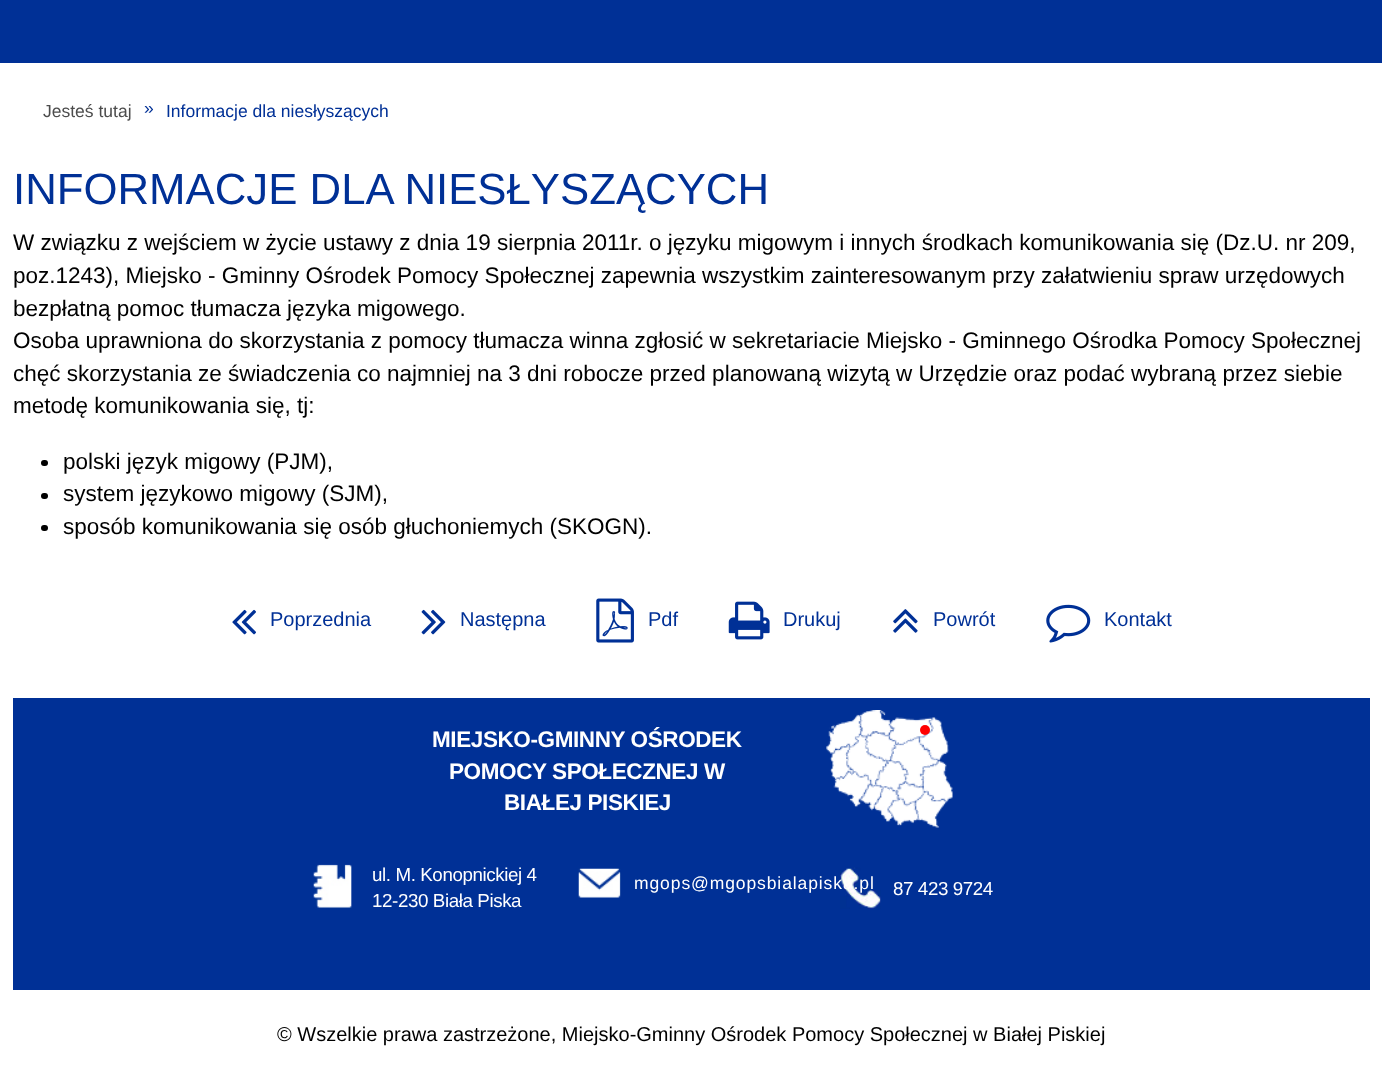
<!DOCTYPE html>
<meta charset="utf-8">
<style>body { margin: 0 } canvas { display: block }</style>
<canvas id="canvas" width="1382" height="1079"></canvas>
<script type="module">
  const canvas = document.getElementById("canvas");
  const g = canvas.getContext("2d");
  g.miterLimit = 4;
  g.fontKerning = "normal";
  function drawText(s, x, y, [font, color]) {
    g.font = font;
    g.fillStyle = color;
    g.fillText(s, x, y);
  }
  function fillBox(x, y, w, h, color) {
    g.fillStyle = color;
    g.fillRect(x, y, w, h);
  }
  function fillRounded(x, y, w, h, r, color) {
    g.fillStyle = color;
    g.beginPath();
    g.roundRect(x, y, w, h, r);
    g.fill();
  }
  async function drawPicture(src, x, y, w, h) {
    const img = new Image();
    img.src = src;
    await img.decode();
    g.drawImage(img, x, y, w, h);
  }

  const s1 = ["17.5px Liberation Sans", "#4C4C4C"];
  const s2 = ["17.5px Liberation Sans", "#003096"];
  const s3 = ["43.75px Liberation Sans", "#003096"];
  const s4 = ["22.5px Liberation Sans", "#000000"];
  const s5 = ["20px Liberation Sans", "#003096"];
  const s6 = ["bold 22.5px Liberation Sans", "#FFFFFF"];
  const s7 = ["18.75px Liberation Sans", "#FFFFFF"];
  const s8 = ["17.5px Liberation Sans", "#FFFFFF"];
  const s9 = ["20px Liberation Sans", "#000000"];

  fillBox(0, 0, 1382, 1079, "#FFFFFF");
  fillBox(0, 0, 1382, 63, "#003096");
  drawText("Jesteś tutaj", 43, 117, s1);
  drawText("»", 144, 114, s2);
  drawText("Informacje dla niesłyszących", 166, 117, s2);
  drawText("INFORMACJE DLA NIESŁYSZĄCYCH", 13, 204, s3);
  drawText("W związku z wejściem w życie ustawy z dnia 19 sierpnia 2011r. o języku migowym i innych środkach komunikowania się (Dz.U. nr 209,", 13, 250, s4);
  drawText("poz.1243), Miejsko - Gminny Ośrodek Pomocy Społecznej zapewnia wszystkim zainteresowanym przy załatwieniu spraw urzędowych", 13, 283, s4);
  drawText("bezpłatną pomoc tłumacza języka migowego.", 13, 316, s4);
  drawText("Osoba uprawniona do skorzystania z pomocy tłumacza winna zgłosić w sekretariacie Miejsko - Gminnego Ośrodka Pomocy Społecznej", 13, 348, s4);
  drawText("chęć skorzystania ze świadczenia co najmniej na 3 dni robocze przed planowaną wizytą w Urzędzie oraz podać wybraną przez siebie", 13, 381, s4);
  drawText("metodę komunikowania się, tj:", 13, 413, s4);
  fillRounded(41, 460, 7, 6, 3, "#000000");
  drawText("polski język migowy (PJM),", 63, 469, s4);
  fillRounded(41, 493, 7, 6, 3, "#000000");
  drawText("system językowo migowy (SJM),", 63, 501, s4);
  fillRounded(41, 525, 7, 6, 3, "#000000");
  drawText("sposób komunikowania się osób głuchoniemych (SKOGN).", 63, 534, s4);
  await drawPicture("pic1.png", 232, 609, 24, 26);
  drawText("Poprzednia", 270, 626, s5);
  await drawPicture("pic2.png", 421, 609, 25, 26);
  drawText("Następna", 460, 626, s5);
  await drawPicture("pic3.png", 596, 598, 38, 45);
  drawText("Pdf", 648, 626, s5);
  await drawPicture("pic4.png", 728, 601, 42, 39);
  drawText("Drukuj", 783, 626, s5);
  await drawPicture("pic5.png", 893, 609, 25, 24);
  drawText("Powrót", 933, 626, s5);
  await drawPicture("pic6.png", 1046, 604, 45, 39);
  drawText("Kontakt", 1104, 626, s5);
  fillBox(13, 698, 1357, 292, "#003096");
  g.letterSpacing = "-0.4px";
  drawText("MIEJSKO-GMINNY OŚRODEK", 432, 747, s6);
  drawText("POMOCY SPOŁECZNEJ W", 449, 779, s6);
  drawText("BIAŁEJ PISKIEJ", 504, 810, s6);
  await drawPicture("pic7.png", 826, 710, 127, 118);
  g.fillStyle = "#FF0000";
  g.beginPath();
  g.arc(925, 730, 5, 0, Math.PI * 2);
  g.fill();
  await drawPicture("pic8.png", 313, 864, 39, 45);
  drawText("ul. M. Konopnickiej 4", 372, 881, s7);
  drawText("12-230 Biała Piska", 372, 907, s7);
  await drawPicture("pic9.png", 578, 868, 43, 30);
  g.letterSpacing = "0.9px";
  drawText("mgops@mgopsbialapiska.pl", 634, 889, s8);
  await drawPicture("pic10.png", 840, 867, 41, 42);
  g.letterSpacing = "-0.4px";
  drawText("87 423 9724", 893, 895, s7);
  g.letterSpacing = "0px";
  drawText("© Wszelkie prawa zastrzeżone, Miejsko-Gminny Ośrodek Pomocy Społecznej w Białej Piskiej", 277, 1041, s9);
</script>
